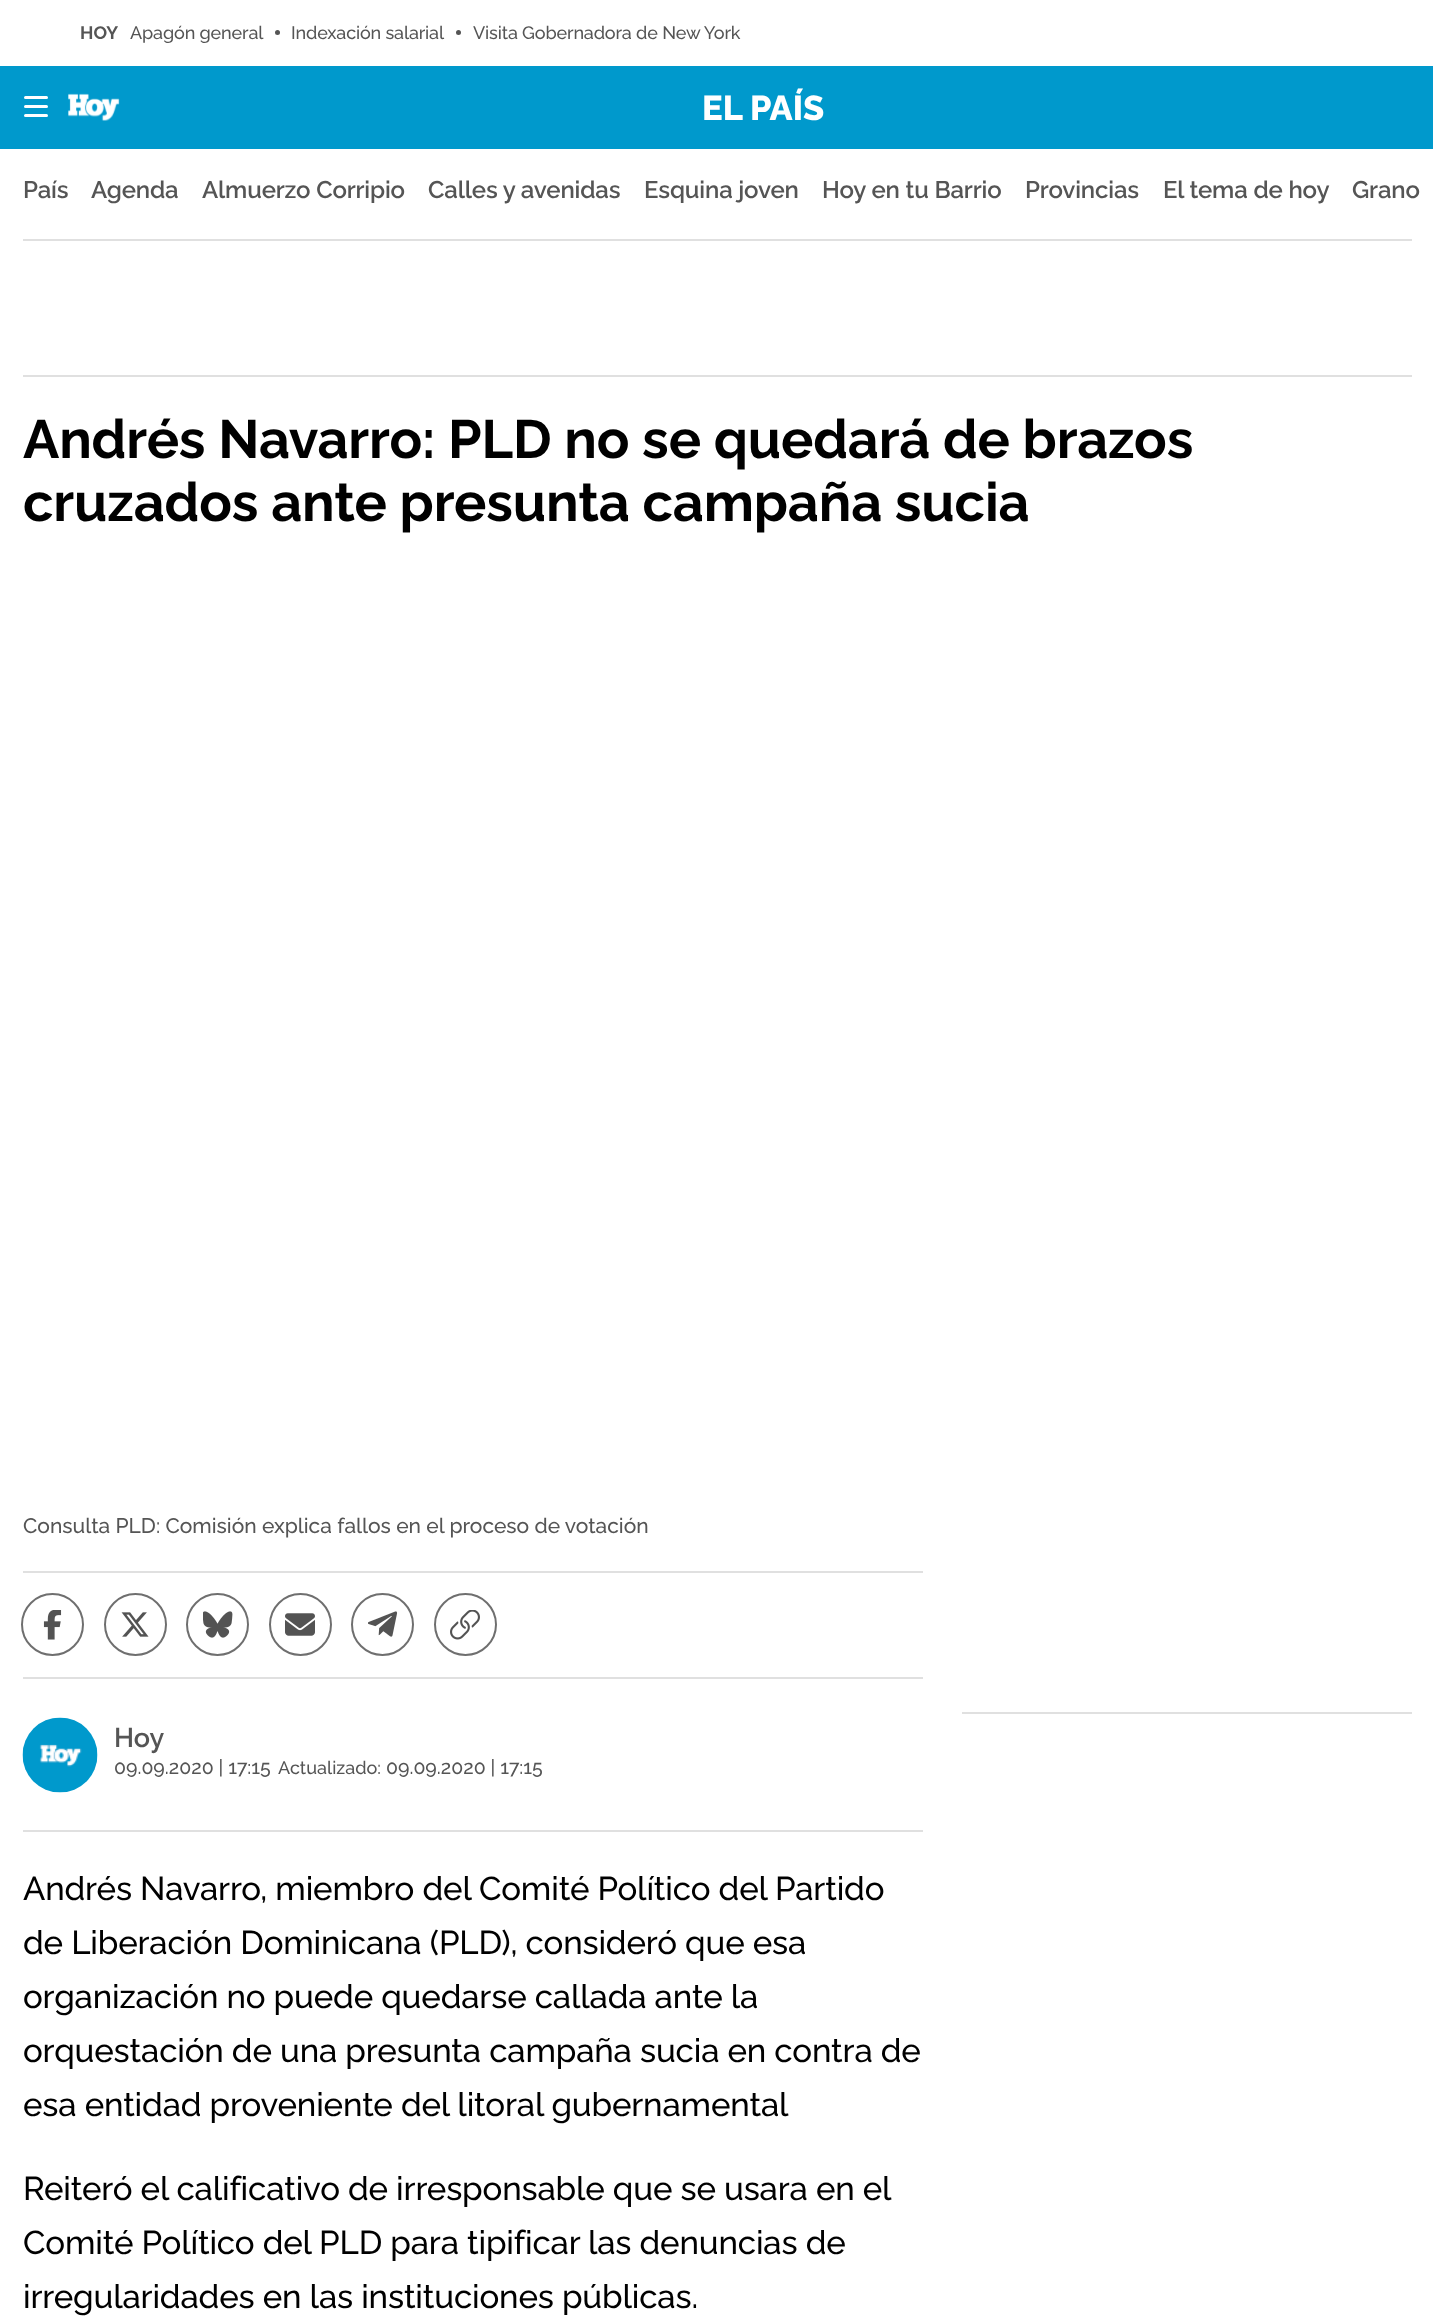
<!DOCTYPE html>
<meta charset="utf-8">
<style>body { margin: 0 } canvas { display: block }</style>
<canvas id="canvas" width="1433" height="2316"></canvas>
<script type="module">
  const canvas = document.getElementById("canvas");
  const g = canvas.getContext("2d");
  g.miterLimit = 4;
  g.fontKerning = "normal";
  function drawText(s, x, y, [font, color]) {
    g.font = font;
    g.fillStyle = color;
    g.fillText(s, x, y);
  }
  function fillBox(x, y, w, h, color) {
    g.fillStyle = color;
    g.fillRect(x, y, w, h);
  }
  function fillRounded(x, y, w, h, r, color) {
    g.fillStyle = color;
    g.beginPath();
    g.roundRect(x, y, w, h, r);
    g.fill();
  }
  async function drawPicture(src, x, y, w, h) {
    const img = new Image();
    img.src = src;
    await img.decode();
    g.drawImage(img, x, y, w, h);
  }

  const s1 = ["bold 18px Raleway", "#555555"];
  const s2 = ["500 18px Raleway", "#555555"];
  const s3 = ["800 34.5px Raleway", "#FFFFFF"];
  const s4 = ["600 24px Raleway", "#555555"];
  const s5 = ["bold 54px Raleway", "#000000"];
  const s6 = ["500 21px Raleway", "#555555"];
  const s7 = ["600 27px Raleway", "#555555"];
  const s8 = ["500 19.5px Raleway", "#555555"];
  const s9 = ["500 33px Raleway", "#000000"];

  fillBox(0, 0, 1433, 2316, "#FFFFFF");
  fillBox(0, 66, 1433, 83, "#0099CC");
  drawText("HOY", 80, 39, s1);
  g.letterSpacing = "-0.15px";
  drawText("Apagón general", 130, 39, s2);
  g.beginPath();
  g.arc(277.5, 32.5, 2.5, 0, Math.PI * 2);
  g.fill();
  drawText("Indexación salarial", 291, 39, s2);
  g.beginPath();
  g.arc(458.5, 32.5, 2.5, 0, Math.PI * 2);
  g.fill();
  drawText("Visita Gobernadora de New York", 473, 39, s2);
  fillRounded(24, 105, 24, 3, 1.5, "#FFFFFF");
  fillRounded(24, 96, 24, 3, 1.5, "#FFFFFF");
  fillRounded(24, 114, 24, 3, 1.5, "#FFFFFF");
  await drawPicture("pic1.png", 68, 93, 52, 28);
  g.letterSpacing = "0px";
  drawText("EL PAÍS", 702, 120, s3);
  g.letterSpacing = "-0.15px";
  drawText("País", 23, 198, s4);
  drawText("Agenda", 91, 198, s4);
  drawText("Almuerzo Corripio", 202, 198, s4);
  drawText("Calles y avenidas", 428, 198, s4);
  drawText("Esquina joven", 644, 198, s4);
  drawText("Hoy en tu Barrio", 822, 198, s4);
  drawText("Provincias", 1025, 198, s4);
  drawText("El tema de hoy", 1163, 198, s4);
  drawText("Grano", 1352, 198, s4);
  fillBox(23, 239, 1389, 2, "#E0E0E0");
  fillBox(23, 375, 1389, 2, "#E0E0E0");
  drawText("Andrés Navarro: PLD no se quedará de brazos", 23, 458, s5);
  drawText("cruzados ante presunta campaña sucia", 23, 521, s5);
  g.letterSpacing = "0px";
  drawText("Consulta PLD: Comisión explica fallos en el proceso de votación", 23, 1533, s6);
  fillBox(23, 1571, 900, 2, "#E0E0E0");
  fillBox(23, 1677, 900, 2, "#E0E0E0");
  await drawPicture("pic2.png", 43, 1610, 19, 30);
  g.beginPath();
  g.arc(52.5, 1624.5, 30.5, 0, Math.PI * 2);
  g.strokeStyle = "#6F6F6F";
  g.lineWidth = 2;
  g.stroke();
  await drawPicture("pic3.png", 121, 1612, 28, 25);
  g.beginPath();
  g.arc(135.5, 1624.5, 30.5, 0, Math.PI * 2);
  g.stroke();
  await drawPicture("pic4.png", 203, 1611, 30, 27);
  g.beginPath();
  g.arc(217.5, 1624.5, 30.5, 0, Math.PI * 2);
  g.stroke();
  await drawPicture("pic5.png", 285, 1613, 30, 23);
  g.beginPath();
  g.arc(300.5, 1624.5, 30.5, 0, Math.PI * 2);
  g.stroke();
  await drawPicture("pic6.png", 368, 1611, 30, 26);
  g.beginPath();
  g.arc(382.5, 1624.5, 30.5, 0, Math.PI * 2);
  g.stroke();
  await drawPicture("pic7.png", 450, 1610, 30, 30);
  g.beginPath();
  g.arc(465.5, 1624.5, 30.5, 0, Math.PI * 2);
  g.stroke();
  fillBox(962, 1712, 450, 2, "#E0E0E0");
  fillBox(23, 1830, 900, 2, "#E0E0E0");
  await drawPicture("pic8.png", 22, 1717, 76, 76);
  drawText("Hoy", 114, 1747, s7);
  drawText("09.09.2020 | 17:15", 114, 1774, s8);
  drawText("Actualizado:", 278, 1774, s2);
  drawText("09.09.2020 | 17:15", 386, 1774, s8);
  g.letterSpacing = "-0.15px";
  drawText("Andrés Navarro, miembro del Comité Político del Partido", 23, 1900, s9);
  drawText("de Liberación Dominicana (PLD), consideró que esa", 23, 1954, s9);
  drawText("organización no puede quedarse callada ante la", 23, 2008, s9);
  drawText("orquestación de una presunta campaña sucia en contra de", 23, 2062, s9);
  drawText("esa entidad proveniente del litoral gubernamental", 23, 2116, s9);
  drawText("Reiteró el calificativo de irresponsable que se usara en el", 23, 2200, s9);
  drawText("Comité Político del PLD para tipificar las denuncias de", 23, 2254, s9);
  drawText("irregularidades en las instituciones públicas.", 23, 2308, s9);
</script>
